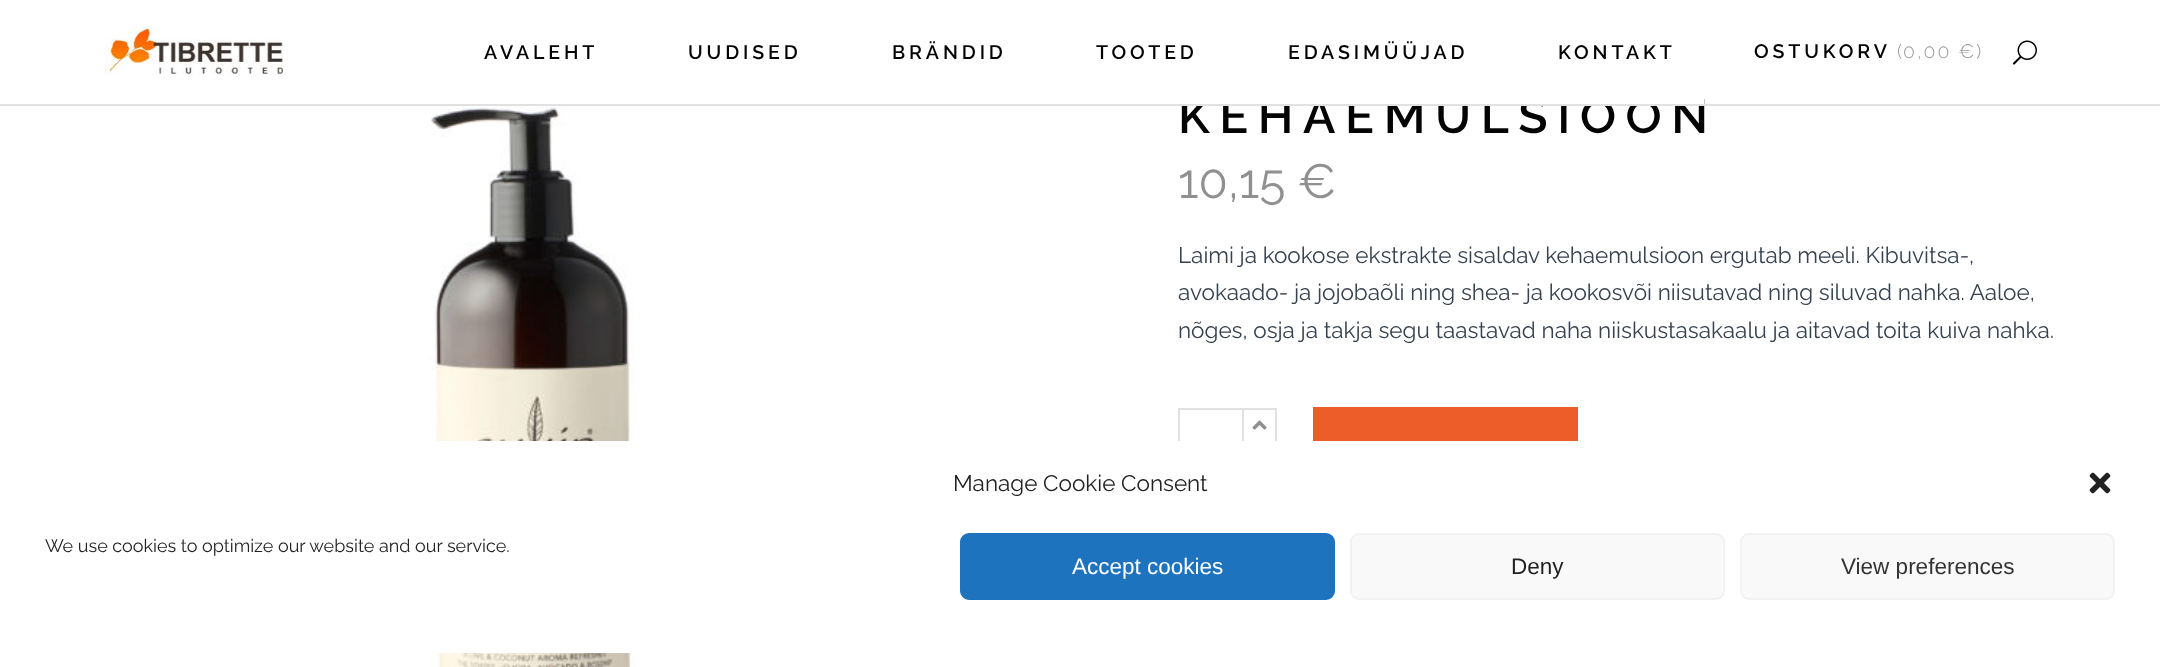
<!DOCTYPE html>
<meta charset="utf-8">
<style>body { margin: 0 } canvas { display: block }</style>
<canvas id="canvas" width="2160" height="667"></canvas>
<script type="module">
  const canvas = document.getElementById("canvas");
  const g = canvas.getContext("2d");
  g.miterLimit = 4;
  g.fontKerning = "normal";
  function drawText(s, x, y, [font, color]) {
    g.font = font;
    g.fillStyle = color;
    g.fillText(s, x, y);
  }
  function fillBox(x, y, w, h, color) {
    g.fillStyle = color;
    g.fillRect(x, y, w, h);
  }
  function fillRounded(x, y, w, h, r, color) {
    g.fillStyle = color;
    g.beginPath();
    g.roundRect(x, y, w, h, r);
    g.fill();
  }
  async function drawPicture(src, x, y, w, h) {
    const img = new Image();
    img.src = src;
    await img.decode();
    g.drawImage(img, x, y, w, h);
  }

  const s1 = ["600 48px Raleway", "#030303"];
  const s2 = ["600 19.5px Raleway", "#030303"];
  const s3 = ["300 19.5px Raleway", "#999999"];
  const s4 = ["48px Raleway", "#909090"];
  const s5 = ["22.5px Raleway", "#36424F"];
  const s6 = ["22.5px Raleway", "#222222"];
  const s7 = ["18px Raleway", "#222222"];
  const s8 = ["22.5px Liberation Sans", "#FFFFFF"];
  const s9 = ["22.5px Liberation Sans", "#222222"];
  const s10 = ["22.5px Liberation Sans", "#333333"];

  fillBox(0, 0, 2160, 667, "#FFFFFF");
  g.letterSpacing = "9.6px";
  drawText("KEHAEMULSIOON", 1178, 133, s1);
  fillBox(1181, 98, 523, 6, "#FFFFFF");
  fillBox(0, 104, 2160, 2, "#E1E1E1");
  await drawPicture("pic1.png", 105, 27, 178, 48);
  g.letterSpacing = "3.9px";
  drawText("AVALEHT", 484, 59, s2);
  drawText("UUDISED", 688, 59, s2);
  drawText("BRÄNDID", 892, 59, s2);
  drawText("TOOTED", 1096, 59, s2);
  drawText("EDASIMÜÜJAD", 1288, 59, s2);
  drawText("KONTAKT", 1558, 59, s2);
  drawText("OSTUKORV", 1754, 58, s2);
  g.letterSpacing = "2px";
  drawText("(", 1897, 58, s3);
  drawText("0,00 €)", 1903, 58, s3);
  await drawPicture("pic2.png", 2012, 40, 25, 25);
  await drawPicture("pic3.png", 430, 106, 206, 561);
  g.letterSpacing = "0px";
  drawText("10,15 €", 1178, 198, s4);
  drawText("Laimi ja kookose ekstrakte sisaldav kehaemulsioon ergutab meeli. Kibuvitsa-,", 1178, 263, s5);
  drawText("avokaado- ja jojobaõli ning shea- ja kookosvõi niisutavad ning siluvad nahka. Aaloe,", 1178, 300, s5);
  drawText("nõges, osja ja takja segu taastavad naha niiskustasakaalu ja aitavad toita kuiva nahka.", 1178, 338, s5);
  g.strokeStyle = "#E1E1E1";
  g.lineWidth = 2;
  g.strokeRect(1179, 409, 64, 75);
  fillBox(1244, 408, 33, 2, "#E1E1E1");
  fillBox(1275, 408, 2, 38, "#E1E1E1");
  await drawPicture("pic4.png", 1252, 420, 15, 10);
  fillBox(1313, 407, 265, 34, "#ED5D29");
  fillRounded(15, 441, 2130, 212, 18, "#FFFFFF");
  drawText("Manage Cookie Consent", 953, 491, s6);
  await drawPicture("pic5.png", 2089, 472, 22, 22);
  drawText("We use cookies to optimize our website and our service.", 45, 552, s7);
  g.fillStyle = "#1E73BE";
  g.beginPath();
  g.roundRect(961, 534, 373, 65, 8);
  g.fill();
  g.strokeStyle = "#1E73BE";
  g.stroke();
  drawText("Accept cookies", 1072, 574, s8);
  g.fillStyle = "#F9F9F9";
  g.beginPath();
  g.roundRect(1351, 534, 373, 65, 8);
  g.fill();
  g.strokeStyle = "#F2F2F2";
  g.stroke();
  drawText("Deny", 1511, 574, s9);
  g.fillStyle = "#F9F9F9";
  g.beginPath();
  g.roundRect(1741, 534, 373, 65, 8);
  g.fill();
  g.stroke();
  drawText("View preferences", 1841, 574, s10);
</script>
